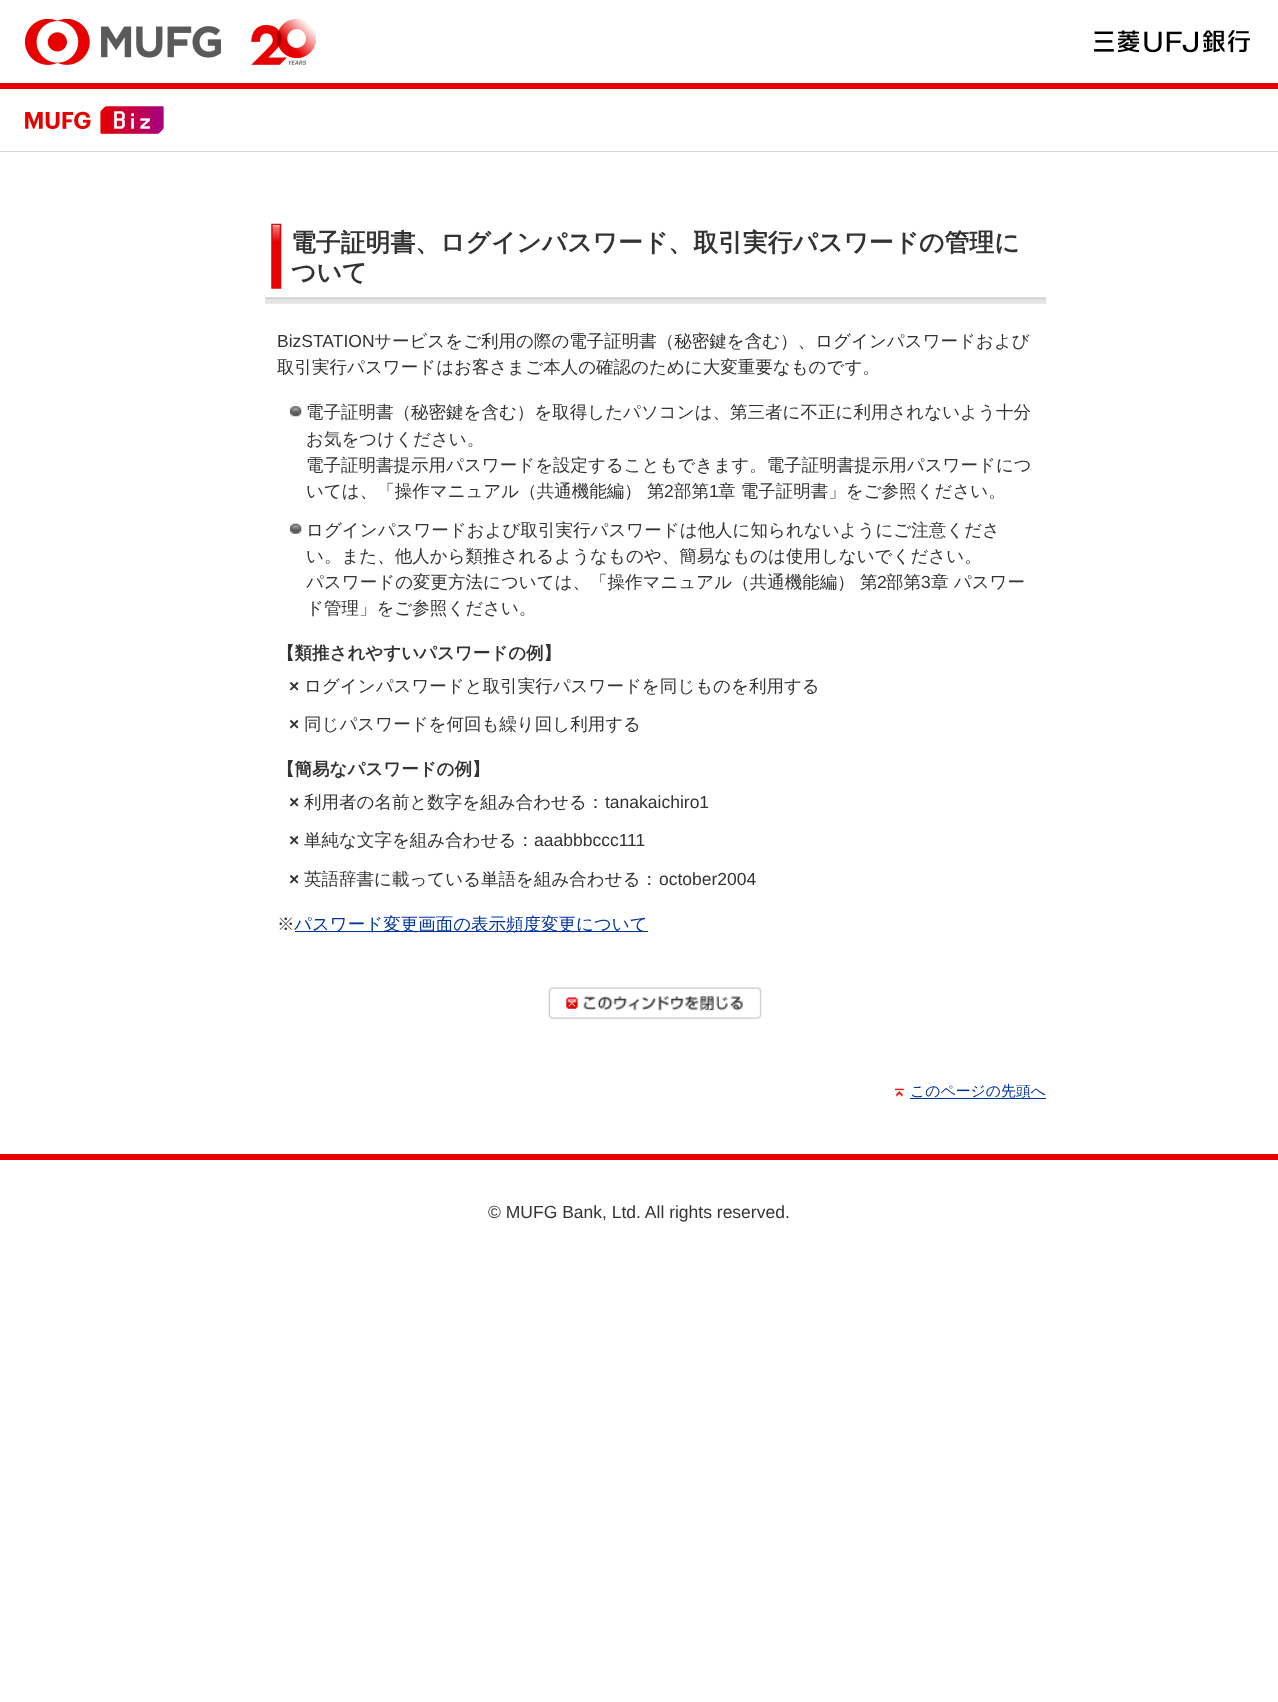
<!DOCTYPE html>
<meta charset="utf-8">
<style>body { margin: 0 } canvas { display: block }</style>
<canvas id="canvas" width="1278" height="1702"></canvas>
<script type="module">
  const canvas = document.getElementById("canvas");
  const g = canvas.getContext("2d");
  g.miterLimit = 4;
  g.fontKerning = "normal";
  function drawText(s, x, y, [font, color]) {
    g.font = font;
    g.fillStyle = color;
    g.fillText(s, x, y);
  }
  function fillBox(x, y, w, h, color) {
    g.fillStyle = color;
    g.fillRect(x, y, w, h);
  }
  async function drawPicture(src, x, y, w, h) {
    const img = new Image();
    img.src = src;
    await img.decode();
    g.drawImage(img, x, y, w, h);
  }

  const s1 = ["bold 24.85px WenQuanYi Zen Hei", "#333333"];
  const s2 = ["17.5px Liberation Sans", "#333333"];
  const s3 = ["500 17.5px WenQuanYi Zen Hei", "#333333"];
  const s4 = ["bold 17.5px WenQuanYi Zen Hei", "#333333"];
  const s5 = ["bold 17.5px Liberation Sans", "#333333"];
  const s6 = ["500 17.5px WenQuanYi Zen Hei", "#003399"];
  const s7 = ["500 14.9px WenQuanYi Zen Hei", "#003399"];

  fillBox(0, 0, 1278, 1702, "#FFFFFF");
  fillBox(0, 83, 1278, 6, "#E60000");
  await drawPicture("pic1.png", 25, 19, 196, 46);
  await drawPicture("pic2.png", 251, 19, 65, 46);
  await drawPicture("pic3.png", 1094, 30, 156, 23);
  fillBox(0, 151, 1278, 1, "#D6D6D6");
  await drawPicture("pic4.png", 25, 106, 139, 28);
  await drawPicture("pic5.png", 265, 297, 782, 7);
  await drawPicture("pic6.png", 271, 223, 11, 66);
  drawText("電子証明書、ログインパスワード、取引実行パスワードの管理に", 291, 251, s1);
  drawText("ついて", 291, 281, s1);
  drawText("BizSTATION", 277, 347, s2);
  drawText("サービスをご利用の際の電子証明書（秘密鍵を含む）、ログインパスワードおよび", 374, 347, s3);
  drawText("取引実行パスワードはお客さまご本人の確認のために大変重要なものです。", 277, 373, s3);
  await drawPicture("pic7.png", 290, 406, 12, 11);
  drawText("電子証明書（秘密鍵を含む）を取得したパソコンは、第三者に不正に利用されないよう十分", 306, 418, s3);
  drawText("お気をつけください。", 306, 445, s3);
  drawText("電子証明書提示用パスワードを設定することもできます。電子証明書提示用パスワードにつ", 306, 471, s3);
  drawText("いては、「操作マニュアル（共通機能編） 第", 306, 497, s3);
  drawText("2", 664, 497, s2);
  drawText("部第", 674, 497, s3);
  drawText("1", 709, 497, s2);
  drawText("章 電子証明書」をご参照ください。", 718, 497, s3);
  await drawPicture("pic8.png", 290, 523, 12, 11);
  drawText("ログインパスワードおよび取引実行パスワードは他人に知られないようにご注意くださ", 306, 536, s3);
  drawText("い。また、他人から類推されるようなものや、簡易なものは使用しないでください。", 306, 562, s3);
  drawText("パスワードの変更方法については、「操作マニュアル（共通機能編） 第", 306, 588, s3);
  drawText("2", 877, 588, s2);
  drawText("部第", 886, 588, s3);
  drawText("3", 921, 588, s2);
  drawText("章 パスワー", 931, 588, s3);
  drawText("ド管理」をご参照ください。", 306, 614, s3);
  drawText("【類推されやすいパスワードの例】", 277, 659, s4);
  drawText("×", 289, 692, s5);
  drawText("ログインパスワードと取引実行パスワードを同じものを利用する", 304, 692, s3);
  drawText("×", 289, 730, s5);
  drawText("同じパスワードを何回も繰り回し利用する", 304, 730, s3);
  drawText("【簡易なパスワードの例】", 277, 775, s4);
  drawText("×", 289, 808, s5);
  drawText("利用者の名前と数字を組み合わせる：", 304, 808, s3);
  drawText("tanakaichiro1", 605, 808, s2);
  drawText("×", 289, 846, s5);
  drawText("単純な文字を組み合わせる：", 304, 846, s3);
  drawText("aaabbbccc111", 534, 846, s2);
  drawText("×", 289, 885, s5);
  drawText("英語辞書に載っている単語を組み合わせる：", 304, 885, s3);
  drawText("october2004", 659, 885, s2);
  drawText("※", 277, 930, s3);
  fillBox(295, 931, 353, 1, "#003399");
  drawText("パスワード変更画面の表示頻度変更について", 294, 930, s6);
  await drawPicture("pic9.png", 548, 987, 214, 32);
  await drawPicture("pic10.png", 895, 1088, 9, 9);
  fillBox(910, 1098, 136, 1, "#003399");
  drawText("このページの先頭へ", 910, 1096, s7);
  fillBox(0, 1154, 1278, 6, "#E60000");
  drawText("© MUFG Bank, Ltd. All rights reserved.", 488, 1218, s2);
</script>
